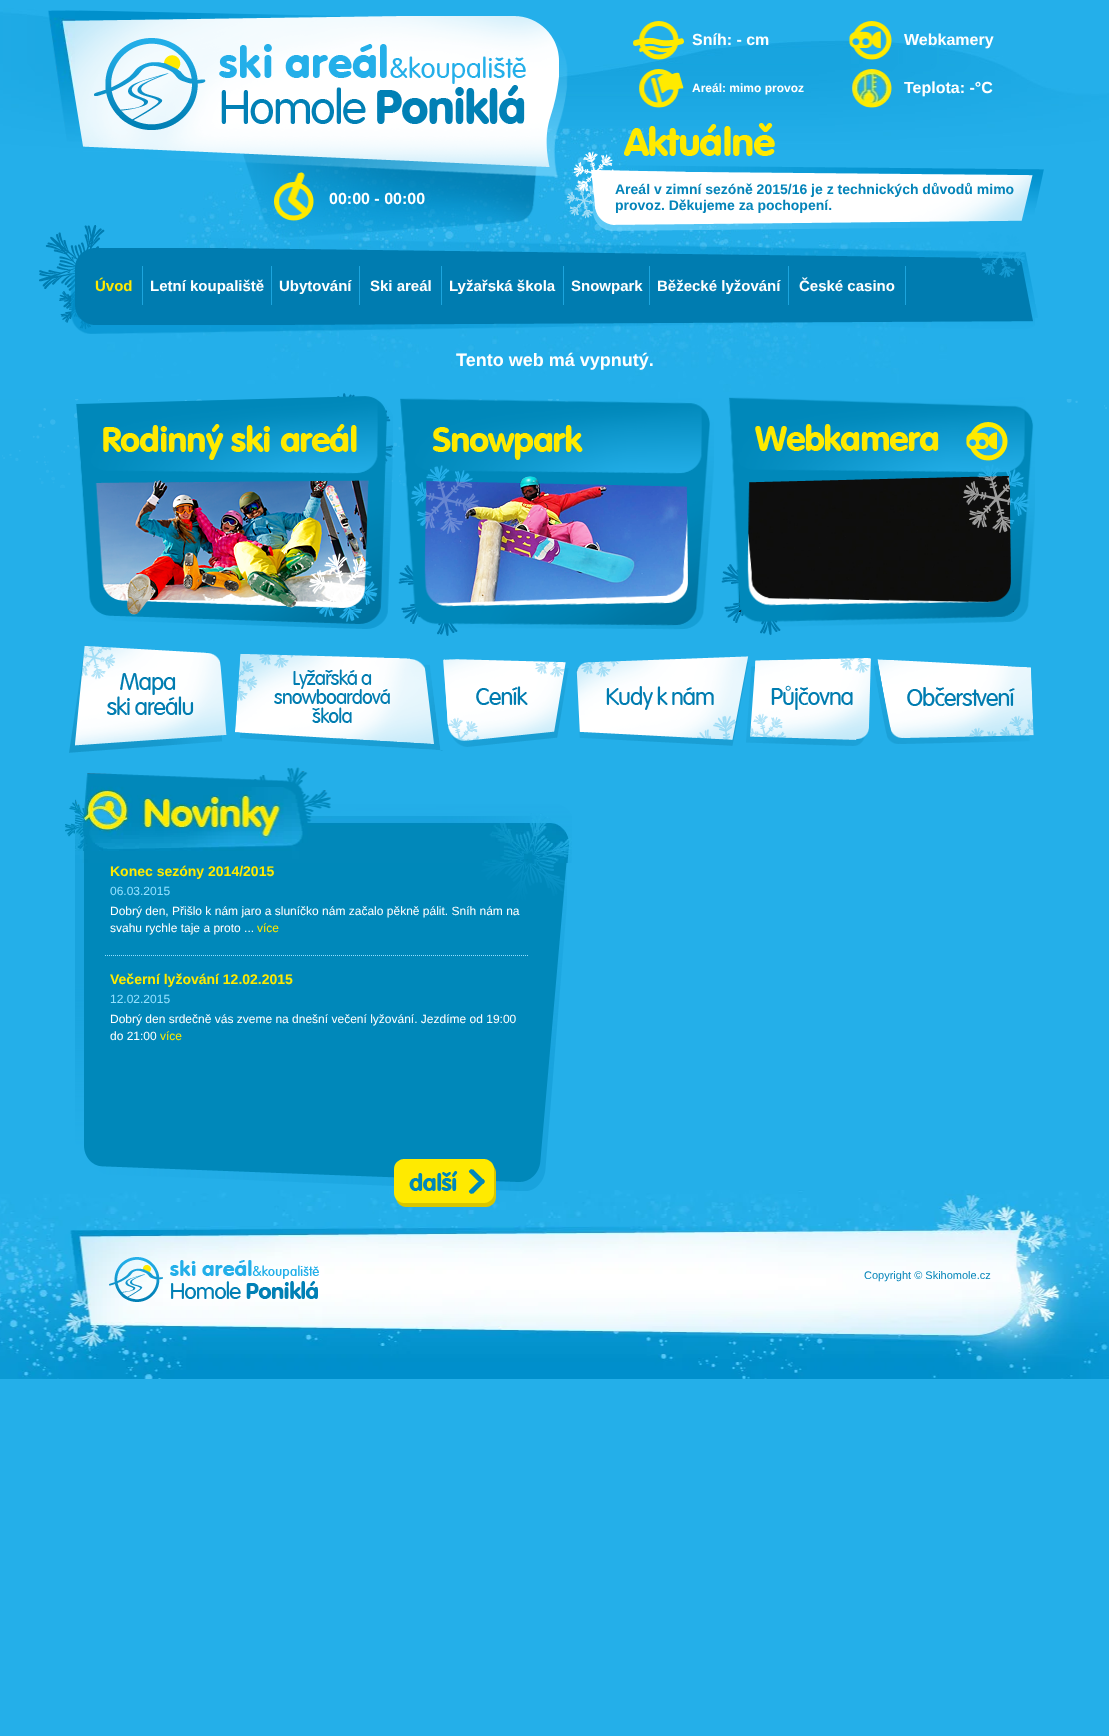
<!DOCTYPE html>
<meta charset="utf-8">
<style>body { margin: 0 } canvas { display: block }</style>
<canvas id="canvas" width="1109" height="1736"></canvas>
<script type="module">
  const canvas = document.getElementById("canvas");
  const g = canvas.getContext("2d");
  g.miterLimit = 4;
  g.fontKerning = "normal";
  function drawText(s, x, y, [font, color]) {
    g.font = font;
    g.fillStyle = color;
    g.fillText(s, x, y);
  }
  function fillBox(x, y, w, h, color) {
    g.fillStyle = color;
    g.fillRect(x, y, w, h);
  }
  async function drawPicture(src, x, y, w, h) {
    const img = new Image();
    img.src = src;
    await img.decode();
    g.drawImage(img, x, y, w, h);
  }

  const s1 = ["bold 16px Liberation Sans", "#FFFFFF"];
  const s2 = ["bold 12px Liberation Sans", "#FFFFFF"];
  const s3 = ["bold 14px Liberation Sans", "#0484B9"];
  const s4 = ["bold 15px Liberation Sans", "#FFEA00"];
  const s5 = ["bold 15px Liberation Sans", "#FFFFFF"];
  const s6 = ["bold 18px Liberation Sans", "#FFFFFF"];
  const s7 = ["bold 14px Liberation Sans", "#FFEA00"];
  const s8 = ["12px Liberation Sans", "#94E1FF"];
  const s9 = ["12px Liberation Sans", "#FFFFFF"];
  const s10 = ["12px Liberation Sans", "#FFEA00"];
  const s11 = ["11px Liberation Sans", "#0484B9"];

  fillBox(0, 0, 1109, 1736, "#24AFE9");
  await drawPicture("pic1.png", 0, 1190, 1109, 189);
  await drawPicture("pic2.png", 2, 399, 1105, 89);
  await drawPicture("pic3.png", 0, 0, 1109, 399);
  await drawPicture("pic4.png", 75, 10, 960, 229);
  await drawPicture("pic5.png", 48, 10, 27, 229);
  await drawPicture("pic6.png", 94, 38, 432, 92);
  await drawPicture("pic7.png", 633, 21, 51, 39);
  drawText("Sníh: - cm", 692, 45, s1);
  await drawPicture("pic8.png", 849, 21, 43, 39);
  drawText("Webkamery", 904, 45, s1);
  await drawPicture("pic9.png", 639, 69, 45, 39);
  drawText("Areál: mimo provoz", 692, 92, s2);
  await drawPicture("pic10.png", 852, 69, 40, 39);
  drawText("Teplota: -°C", 904, 93, s1);
  await drawPicture("pic11.png", 624, 123, 151, 33);
  await drawPicture("pic12.png", 274, 172, 40, 49);
  drawText("00:00 - 00:00", 329, 204, s1);
  drawText("Areál v zimní sezóně 2015/16 je z technických důvodů mimo", 615, 194, s3);
  drawText("provoz. Děkujeme za pochopení.", 615, 210, s3);
  await drawPicture("pic13.png", 1035, 169, 9, 39);
  await drawPicture("pic14.png", 75, 239, 960, 95);
  await drawPicture("pic15.png", 39, 239, 36, 87);
  fillBox(142, 266, 1, 39, "#1DA5DE");
  drawText("Úvod", 95, 291, s4);
  fillBox(271, 266, 1, 39, "#1DA5DE");
  drawText("Letní koupaliště", 150, 291, s5);
  fillBox(359, 266, 1, 39, "#1DA5DE");
  drawText("Ubytování", 279, 291, s5);
  fillBox(441, 266, 1, 39, "#1DA5DE");
  drawText("Ski areál", 370, 291, s5);
  fillBox(563, 266, 1, 39, "#1DA5DE");
  drawText("Lyžařská škola", 449, 291, s5);
  fillBox(649, 266, 1, 39, "#1DA5DE");
  drawText("Snowpark", 571, 291, s5);
  fillBox(788, 266, 1, 39, "#1DA5DE");
  drawText("Běžecké lyžování", 657, 291, s5);
  fillBox(905, 266, 1, 39, "#1DA5DE");
  drawText("České casino", 799, 291, s5);
  await drawPicture("pic16.png", 1035, 304, 3, 14);
  drawText("Tento web má vypnutý.", 456, 366, s6);
  await drawPicture("pic17.png", 76, 393, 317, 236);
  await drawPicture("pic18.png", 398, 398, 316, 238);
  await drawPicture("pic20.png", 739, 476, 275, 136);
  await drawPicture("pic19.png", 721, 397, 314, 238);
  await drawPicture("pic21.png", 69, 646, 158, 107);
  await drawPicture("pic22.png", 235, 653, 208, 98);
  await drawPicture("pic23.png", 443, 659, 126, 88);
  await drawPicture("pic24.png", 576, 656, 173, 90);
  await drawPicture("pic25.png", 746, 658, 125, 88);
  await drawPicture("pic26.png", 874, 659, 160, 85);
  await drawPicture("pic27.png", 75, 767, 497, 96);
  await drawPicture("pic28.png", 65, 802, 10, 35);
  await drawPicture("pic29.png", 75, 863, 492, 328);
  g.beginPath();
  g.moveTo(105, 955.5);
  g.lineTo(528, 955.5);
  g.strokeStyle = "#92DFFF";
  g.setLineDash([1, 1]);
  g.stroke();
  drawText("Konec sezóny 2014/2015", 110, 876, s7);
  drawText("06.03.2015", 110, 895, s8);
  drawText("Dobrý den, Přišlo k nám jaro a sluníčko nám začalo pěkně pálit. Sníh nám na", 110, 915, s9);
  drawText("svahu rychle taje a proto ...", 110, 932, s9);
  drawText("více", 257, 932, s10);
  drawText("Večerní lyžování 12.02.2015", 110, 984, s7);
  drawText("12.02.2015", 110, 1003, s8);
  drawText("Dobrý den srdečně vás zveme na dnešní večení lyžování. Jezdíme od 19:00", 110, 1023, s9);
  drawText("do 21:00", 110, 1040, s9);
  drawText("více", 160, 1040, s10);
  await drawPicture("pic30.png", 394, 1159, 102, 48);
  await drawPicture("pic31.png", 109, 1257, 210, 45);
  drawText("Copyright © Skihomole.cz", 864, 1279, s11);
</script>
